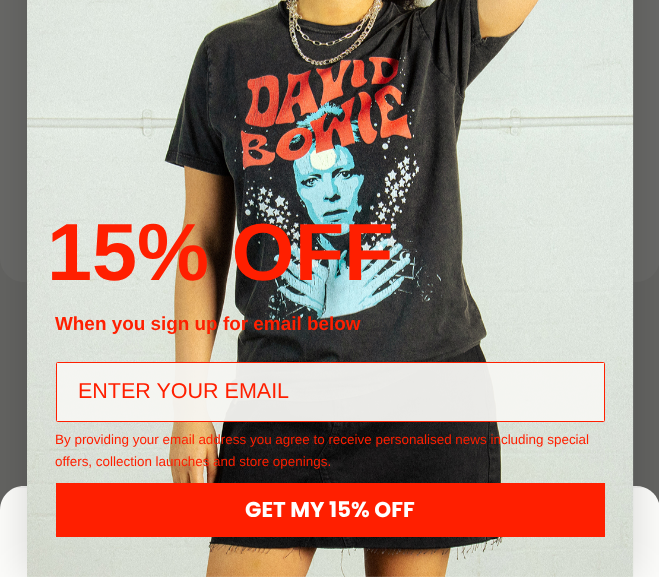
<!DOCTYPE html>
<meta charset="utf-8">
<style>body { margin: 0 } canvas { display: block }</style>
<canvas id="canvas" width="659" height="577"></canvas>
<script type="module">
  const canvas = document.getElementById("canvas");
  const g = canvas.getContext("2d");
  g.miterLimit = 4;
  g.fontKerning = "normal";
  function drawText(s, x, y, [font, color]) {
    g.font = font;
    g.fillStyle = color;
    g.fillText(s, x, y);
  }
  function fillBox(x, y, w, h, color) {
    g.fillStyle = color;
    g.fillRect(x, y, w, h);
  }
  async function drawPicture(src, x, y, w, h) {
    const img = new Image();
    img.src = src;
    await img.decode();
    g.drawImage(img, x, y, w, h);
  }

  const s1 = ["bold 81px Liberation Sans", "#FF1F00"];
  const s2 = ["bold 18.9px Liberation Sans", "#FF1F00"];
  const s3 = ["21.5px Liberation Sans", "#FF1F00"];
  const s4 = ["13.45px Liberation Sans", "#FF1F00"];
  const s5 = ["bold 21.5px Poppins", "#FFFFFF"];

  fillBox(0, 0, 659, 577, "#636361");
  g.fillStyle = "#686866";
  g.beginPath();
  g.moveTo(0, -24);
  g.lineTo(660, -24);
  g.lineTo(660, 258);
  g.bezierCurveTo(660, 271.5, 649.5, 282, 636, 282);
  g.lineTo(24, 282);
  g.bezierCurveTo(10.5, 282, 0, 271.5, 0, 258);
  g.closePath();
  g.fill();
  g.fillStyle = "#FCFCFA";
  g.beginPath();
  g.moveTo(24, 486);
  g.lineTo(636, 486);
  g.bezierCurveTo(649.5, 486, 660, 496.5, 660, 510);
  g.lineTo(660, 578);
  g.lineTo(0, 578);
  g.lineTo(0, 510);
  g.bezierCurveTo(0, 496.5, 10.5, 486, 24, 486);
  g.closePath();
  g.fill();
  fillBox(12, 486, 636, 2, "rgba(84, 84, 82, 0.06)");
  g.fillStyle = "rgba(0, 0, 0, 0.15)";
  g.filter = "blur(20px)";
  g.beginPath();
  g.rect(27, -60, 606, 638);
  g.fill();
  g.filter = "none";
  await drawPicture("pic1.png", 27, 0, 607, 577);
  drawText("15% OFF", 47, 280, s1);
  drawText("When you sign up for email below", 55, 330, s2);
  g.fillStyle = "rgba(245, 245, 242, 0.95)";
  g.beginPath();
  g.roundRect(56.5, 362.5, 548, 59, 1);
  g.fill();
  g.strokeStyle = "#FF1F00";
  g.stroke();
  drawText("ENTER YOUR EMAIL", 78, 398, s3);
  drawText("By providing your email address you agree to receive personalised news including special", 55, 444, s4);
  drawText("offers, collection launches and store openings.", 55, 466, s4);
  fillBox(56, 483, 549, 54, "#FF1F00");
  drawText("GET MY 15% OFF", 245, 517, s5);
</script>
